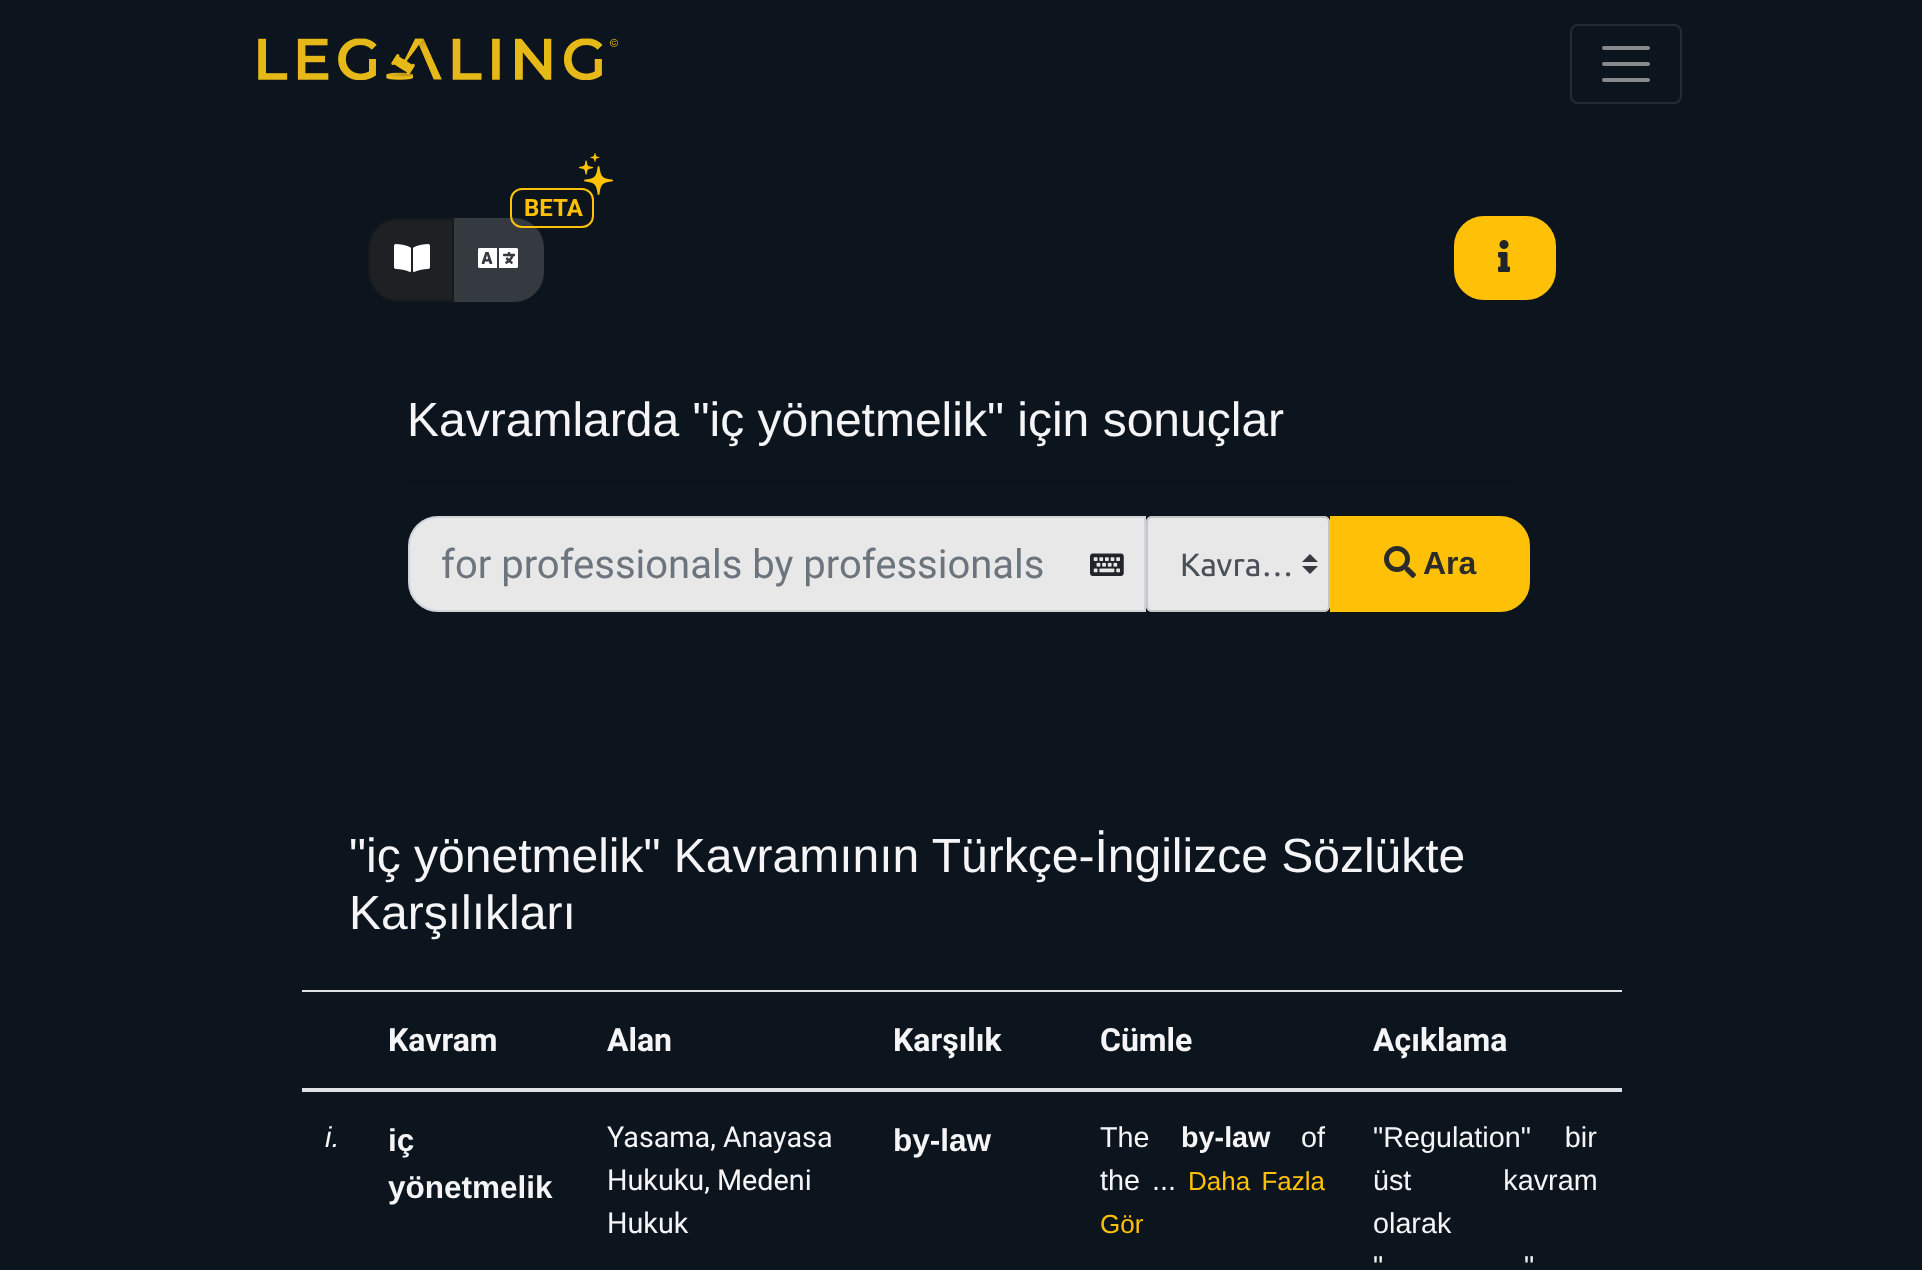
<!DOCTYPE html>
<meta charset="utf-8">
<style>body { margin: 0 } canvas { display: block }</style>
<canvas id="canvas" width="1922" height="1270"></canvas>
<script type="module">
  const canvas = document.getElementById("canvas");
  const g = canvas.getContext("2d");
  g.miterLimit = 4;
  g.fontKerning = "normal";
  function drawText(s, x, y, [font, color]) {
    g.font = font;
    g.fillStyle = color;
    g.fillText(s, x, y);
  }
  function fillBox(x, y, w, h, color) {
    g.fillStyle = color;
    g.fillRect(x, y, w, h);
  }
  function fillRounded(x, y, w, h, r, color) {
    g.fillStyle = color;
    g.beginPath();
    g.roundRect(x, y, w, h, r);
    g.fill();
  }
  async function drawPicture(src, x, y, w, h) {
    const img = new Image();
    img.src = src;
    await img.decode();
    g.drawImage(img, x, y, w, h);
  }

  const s1 = ["bold 24px Roboto", "#FFC107"];
  const s2 = ["48px Liberation Sans", "#F5F5F7"];
  const s3 = ["40px Roboto", "#6C757D"];
  const s4 = ["32px Ubuntu", "#495057"];
  const s5 = ["bold 32px Liberation Sans", "#2B2B2B"];
  const s6 = ["bold 32px Roboto", "#F5F5F7"];
  const s7 = ["italic 28.75px Liberation Sans", "#F5F5F7"];
  const s8 = ["bold 31.5px Liberation Sans", "#F5F5F7"];
  const s9 = ["28.75px Roboto", "#F5F5F7"];
  const s10 = ["28.75px Liberation Sans", "#F5F5F7"];
  const s11 = ["bold 28.75px Liberation Sans", "#F5F5F7"];
  const s12 = ["26px Liberation Sans", "#FFC107"];

  fillBox(0, 0, 1922, 1270, "#0C151D");
  await drawPicture("pic1.png", 258, 38, 360, 42);
  g.beginPath();
  g.roundRect(1571, 25, 110, 78, 7);
  g.strokeStyle = "#242C34";
  g.lineWidth = 2;
  g.stroke();
  g.beginPath();
  g.moveTo(1604, 48);
  g.lineTo(1648, 48);
  g.moveTo(1604, 64);
  g.lineTo(1648, 64);
  g.moveTo(1604, 80);
  g.lineTo(1648, 80);
  g.strokeStyle = "#868A8E";
  g.lineWidth = 4;
  g.lineCap = "round";
  g.stroke();
  g.fillStyle = "#343A40";
  g.beginPath();
  g.roundRect(453, 219, 90, 82, [0, 29, 29, 0]);
  g.fill();
  g.strokeStyle = "#343A40";
  g.lineWidth = 2;
  g.stroke();
  g.beginPath();
  g.roundRect(511, 189, 82, 38, 11);
  g.strokeStyle = "#FFC107";
  g.stroke();
  await drawPicture("pic2.png", 579, 153, 34, 42);
  drawText("BETA", 524, 216, s1);
  g.fillStyle = "#1D2124";
  g.beginPath();
  g.roundRect(369, 219, 84, 82, [29, 0, 0, 29]);
  g.fill();
  g.strokeStyle = "#171A1D";
  g.stroke();
  await drawPicture("pic3.png", 394, 244, 36, 28);
  await drawPicture("pic4.png", 478, 248, 40, 20);
  g.fillStyle = "#FFC107";
  g.beginPath();
  g.roundRect(1455, 217, 100, 82, 29);
  g.fill();
  g.strokeStyle = "#FFC107";
  g.stroke();
  await drawPicture("pic5.png", 1498, 240, 12, 32);
  drawText("Kavramlarda \"iç yönetmelik\" için sonuçlar", 407, 436, s2);
  fillBox(408, 482, 1108, 2, "#0B131A");
  g.fillStyle = "#E8E8E8";
  g.beginPath();
  g.roundRect(409, 517, 736, 94, [29, 0, 0, 29]);
  g.fill();
  g.strokeStyle = "#CED4DA";
  g.stroke();
  drawText("for professionals by professionals", 441, 578, s3);
  await drawPicture("pic6.png", 1090, 553, 34, 23);
  fillRounded(1146, 516, 184, 96, 6, "#E8E8E8");
  g.fillStyle = "#343A40";
  g.beginPath();
  g.moveTo(1310, 554);
  g.lineTo(1302, 562);
  g.lineTo(1318, 562);
  g.closePath();
  g.moveTo(1310, 574);
  g.lineTo(1302, 566);
  g.lineTo(1318, 566);
  g.closePath();
  g.fill();
  g.beginPath();
  g.roundRect(1147, 517, 182, 94, 5);
  g.strokeStyle = "#C5C5C5";
  g.stroke();
  drawText("Kavra…", 1180, 576, s4);
  g.fillStyle = "#FFC107";
  g.beginPath();
  g.roundRect(1331, 517, 198, 94, [0, 29, 29, 0]);
  g.fill();
  g.strokeStyle = "#FFC107";
  g.stroke();
  await drawPicture("pic7.png", 1384, 546, 32, 32);
  drawText("Ara", 1423, 574, s5);
  drawText("\"iç yönetmelik\" Kavramının Türkçe-İngilizce Sözlükte", 349, 872, s2);
  drawText("Karşılıkları", 349, 929, s2);
  drawText("Kavram", 388, 1051, s6);
  drawText("Alan", 607, 1051, s6);
  drawText("Karşılık", 893, 1051, s6);
  drawText("Cümle", 1100, 1051, s6);
  fillBox(302, 990, 1320, 2, "#DEE2E6");
  fillBox(302, 1088, 1320, 4, "#DEE2E6");
  drawText("Açıklama", 1373, 1051, s6);
  drawText("i.", 325, 1147, s7);
  drawText("iç", 388, 1151, s8);
  drawText("yönetmelik", 388, 1198, s8);
  drawText("Yasama, Anayasa", 607, 1147, s9);
  drawText("Hukuku, Medeni", 607, 1190, s9);
  drawText("Hukuk", 607, 1233, s9);
  drawText("by-law", 893, 1151, s8);
  drawText("The", 1100, 1147, s10);
  drawText("by-law", 1181, 1147, s11);
  drawText("of", 1301, 1147, s10);
  g.wordSpacing = "4px";
  drawText("the ...", 1100, 1190, s10);
  drawText("Daha Fazla", 1188, 1190, s12);
  g.wordSpacing = "0px";
  drawText("Gör", 1100, 1233, s12);
  g.wordSpacing = "26px";
  drawText("\"Regulation\" bir", 1373, 1147, s10);
  g.wordSpacing = "84px";
  drawText("üst kavram", 1373, 1190, s10);
  g.wordSpacing = "0px";
  drawText("olarak", 1373, 1233, s10);
  drawText("\"", 1373, 1276, s10);
  drawText("\"", 1524, 1276, s10);
</script>
